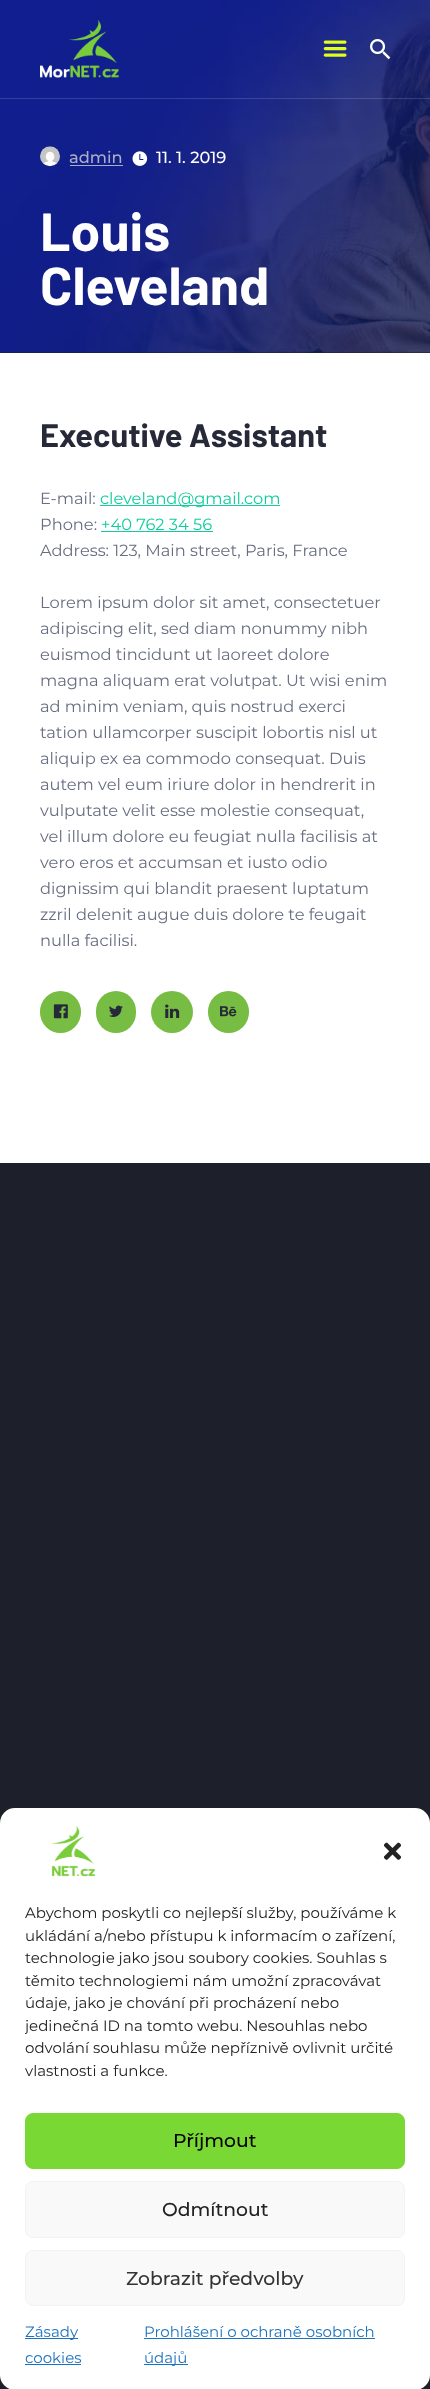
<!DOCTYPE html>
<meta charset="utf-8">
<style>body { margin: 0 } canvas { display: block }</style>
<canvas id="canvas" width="430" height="2389"></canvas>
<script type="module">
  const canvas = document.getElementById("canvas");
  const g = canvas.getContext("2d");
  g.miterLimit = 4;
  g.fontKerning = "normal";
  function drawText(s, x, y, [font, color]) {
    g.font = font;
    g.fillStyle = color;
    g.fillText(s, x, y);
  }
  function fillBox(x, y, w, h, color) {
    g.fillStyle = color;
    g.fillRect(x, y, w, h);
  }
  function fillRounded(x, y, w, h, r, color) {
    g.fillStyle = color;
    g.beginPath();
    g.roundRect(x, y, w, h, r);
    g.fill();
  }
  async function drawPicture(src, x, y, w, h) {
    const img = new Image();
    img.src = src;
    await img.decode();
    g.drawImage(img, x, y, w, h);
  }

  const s1 = ["500 16.25px Montserrat", "#A8AEC4"];
  const s2 = ["500 16.25px Montserrat", "#FFFFFF"];
  const s3 = ["bold 53.5px Barlow", "#FFFFFF"];
  const s4 = ["bold 32.5px Barlow", "#262937"];
  const s5 = ["16.25px Montserrat", "#686D80"];
  const s6 = ["16.25px Montserrat", "#10CD9C"];
  const s7 = ["15px Montserrat", "#222222"];
  const s8 = ["500 18.75px Montserrat", "#000000"];
  const s9 = ["500 18.75px Montserrat", "#222222"];
  const s10 = ["500 18.75px Montserrat", "#333333"];
  const s11 = ["15px Montserrat", "#1E73BE"];

  fillBox(0, 0, 430, 2389, "#1D202B");
  await drawPicture("pic1.png", 0, 0, 430, 353);
  fillBox(0, 98, 430, 1, "rgba(255, 255, 255, 0.15)");
  await drawPicture("pic2.png", 40, 20, 79, 58);
  await drawPicture("pic3.png", 323, 40, 24, 17);
  await drawPicture("pic4.png", 370, 39, 21, 21);
  await drawPicture("pic5.png", 40, 146, 20, 21);
  drawText("admin", 69, 163, s1);
  fillBox(70, 165, 53, 1, "#A8AEC4");
  await drawPicture("pic6.png", 132, 151, 16, 15);
  drawText("11. 1. 2019", 156, 163, s2);
  drawText("Louis", 40, 251, s3);
  drawText("Cleveland", 40, 305, s3);
  fillBox(0, 353, 430, 810, "#FFFFFF");
  drawText("Executive Assistant", 40, 447, s4);
  drawText("E-mail:", 40, 504, s5);
  fillBox(100, 505, 180, 1, "#10CD9C");
  drawText("cleveland@gmail.com", 100, 504, s6);
  drawText("Phone:", 40, 530, s5);
  drawText("+40 762 34 56", 101, 530, s6);
  fillBox(101, 531, 112, 1, "#10CD9C");
  drawText("Address: 123, Main street, Paris, France", 40, 556, s5);
  drawText("Lorem ipsum dolor sit amet, consectetuer", 40, 608, s5);
  drawText("adipiscing elit, sed diam nonummy nibh", 40, 634, s5);
  drawText("euismod tincidunt ut laoreet dolore", 40, 660, s5);
  drawText("magna aliquam erat volutpat. Ut wisi enim", 40, 686, s5);
  drawText("ad minim veniam, quis nostrud exerci", 40, 712, s5);
  drawText("tation ullamcorper suscipit lobortis nisl ut", 40, 738, s5);
  drawText("aliquip ex ea commodo consequat. Duis", 40, 764, s5);
  drawText("autem vel eum iriure dolor in hendrerit in", 40, 790, s5);
  drawText("vulputate velit esse molestie consequat,", 40, 816, s5);
  drawText("vel illum dolore eu feugiat nulla facilisis at", 40, 842, s5);
  drawText("vero eros et accumsan et iusto odio", 40, 868, s5);
  drawText("dignissim qui blandit praesent luptatum", 40, 894, s5);
  drawText("zzril delenit augue duis dolore te feugait", 40, 920, s5);
  drawText("nulla facilisi.", 40, 946, s5);
  fillRounded(40, 991, 41, 42, 20.5, "#77BC43");
  await drawPicture("pic7.png", 53, 1004, 15, 15);
  fillRounded(96, 991, 40, 42, 20, "#77BC43");
  await drawPicture("pic8.png", 109, 1005, 14, 12);
  g.beginPath();
  g.arc(172, 1012, 21, 0, Math.PI * 2);
  g.fill();
  await drawPicture("pic9.png", 165, 1004, 15, 14);
  fillRounded(208, 991, 41, 42, 20.5, "#77BC43");
  await drawPicture("pic10.png", 220, 1006, 17, 11);
  fillRounded(0, 1808, 430, 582, 15, "#FFFFFF");
  await drawPicture("pic11.png", 51, 1826, 44, 51);
  await drawPicture("pic12.png", 383, 1842, 19, 18);
  drawText("Abychom poskytli co nejlepší služby, používáme k", 25, 1918, s7);
  drawText("ukládání a/nebo přístupu k informacím o zařízení,", 25, 1941, s7);
  drawText("technologie jako jsou soubory cookies. Souhlas s", 25, 1963, s7);
  drawText("těmito technologiemi nám umožní zpracovávat", 25, 1986, s7);
  drawText("údaje, jako je chování při procházení nebo", 25, 2008, s7);
  g.save();
  g.beginPath();
  g.rect(25, 1901, 380, 187);
  g.clip();
  drawText("jedinečná ID na tomto webu. Nesouhlas nebo", 25, 2031, s7);
  g.restore();
  drawText("odvolání souhlasu může nepříznivě ovlivnit určité", 25, 2053, s7);
  drawText("vlastnosti a funkce.", 25, 2076, s7);
  g.fillStyle = "#7AD834";
  g.beginPath();
  g.roundRect(25.5, 2113.5, 379, 55, 7.5);
  g.fill();
  g.strokeStyle = "#7AD834";
  g.stroke();
  drawText("Příjmout", 173, 2147, s8);
  g.fillStyle = "#F9F9F9";
  g.beginPath();
  g.roundRect(25.5, 2181.5, 379, 56, 7.5);
  g.fill();
  g.strokeStyle = "#F2F2F2";
  g.stroke();
  drawText("Odmítnout", 162, 2216, s9);
  g.fillStyle = "#F9F9F9";
  g.beginPath();
  g.roundRect(25.5, 2250.5, 379, 55, 7.5);
  g.fill();
  g.stroke();
  drawText("Zobrazit předvolby", 126, 2285, s10);
  fillBox(25, 2338, 53, 1, "#1E73BE");
  drawText("Zásady", 25, 2337, s11);
  drawText("cookies", 25, 2363, s11);
  fillBox(25, 2364, 56, 1, "#1E73BE");
  drawText("Prohlášení o ochraně osobních", 144, 2337, s11);
  fillBox(144, 2338, 231, 1, "#1E73BE");
  fillBox(144, 2364, 44, 1, "#1E73BE");
  drawText("údajů", 144, 2363, s11);
</script>
